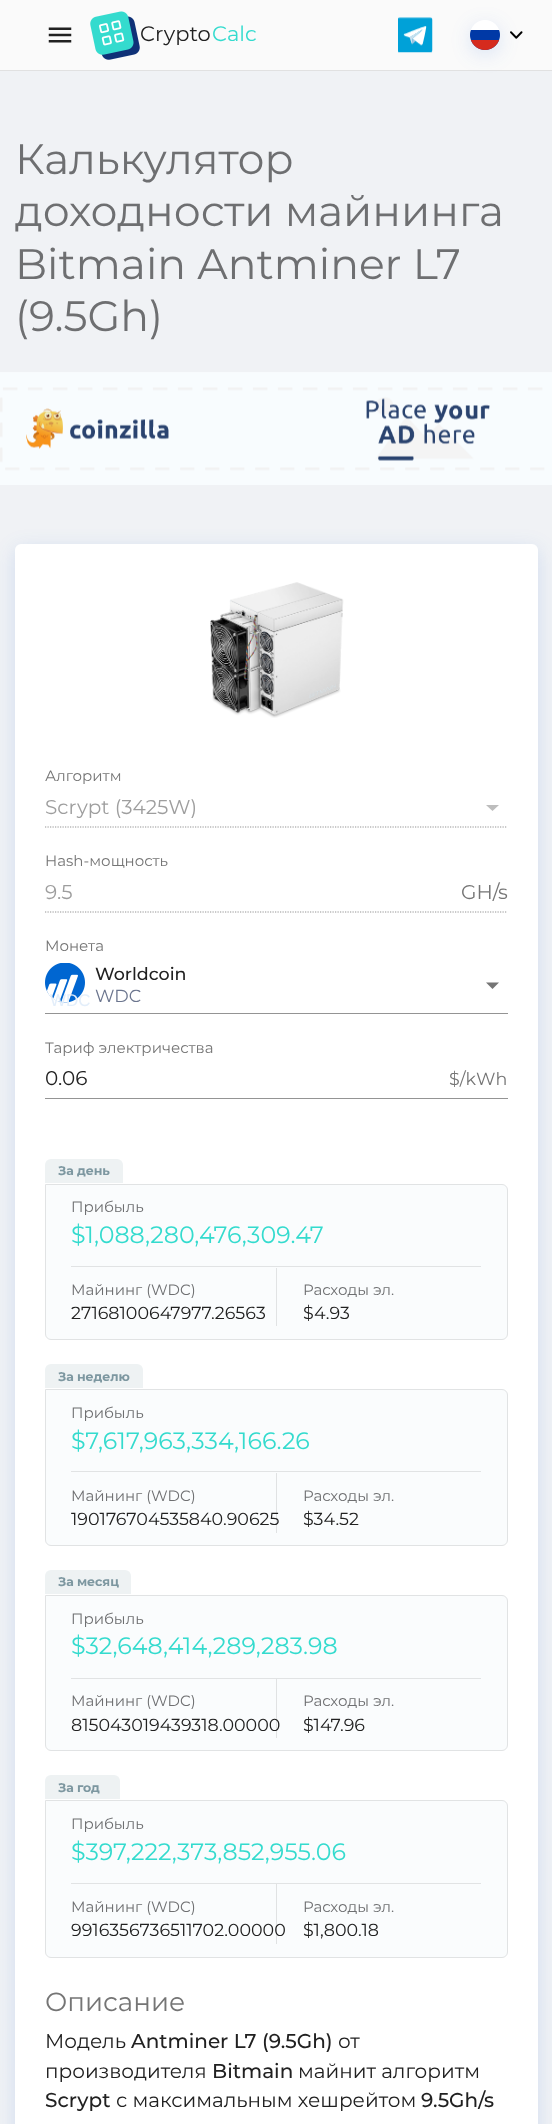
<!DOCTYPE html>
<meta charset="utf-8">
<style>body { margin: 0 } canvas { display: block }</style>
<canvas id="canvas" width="552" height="2124"></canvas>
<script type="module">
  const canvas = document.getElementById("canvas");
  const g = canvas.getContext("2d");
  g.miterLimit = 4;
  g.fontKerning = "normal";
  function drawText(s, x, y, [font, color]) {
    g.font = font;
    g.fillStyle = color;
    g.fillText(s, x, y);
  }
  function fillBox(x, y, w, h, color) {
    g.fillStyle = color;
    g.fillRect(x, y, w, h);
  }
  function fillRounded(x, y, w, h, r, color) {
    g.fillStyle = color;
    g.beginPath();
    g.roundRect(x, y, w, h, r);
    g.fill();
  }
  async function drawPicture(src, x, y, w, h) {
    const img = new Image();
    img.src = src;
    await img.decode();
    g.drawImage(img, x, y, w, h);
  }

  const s1 = ["21px Montserrat", "#212121"];
  const s2 = ["21px Montserrat", "#34DBCE"];
  const s3 = ["42.5px Montserrat", "#6E6F71"];
  const s4 = ["15px Montserrat", "#757575"];
  const s5 = ["20px Montserrat", "#9E9E9E"];
  const s6 = ["20px Montserrat", "#757575"];
  const s7 = ["500 17.5px Montserrat", "#212121"];
  const s8 = ["17.5px Montserrat", "#6B758E"];
  const s9 = ["17px Liberation Sans", "#E3EEFA"];
  const s10 = ["20px Montserrat", "#212121"];
  const s11 = ["17.5px Montserrat", "#757575"];
  const s12 = ["bold 12.5px Montserrat", "#7D97A0"];
  const s13 = ["15px Montserrat", "#6E6F71"];
  const s14 = ["23.75px Montserrat", "#34DBCE"];
  const s15 = ["17.5px Montserrat", "#212121"];
  const s16 = ["26.25px Montserrat", "#757575"];
  const s17 = ["500 20px Montserrat", "#212121"];

  fillBox(0, 0, 552, 2124, "#F0F2F5");
  fillBox(0, 0, 552, 70, "#FAFAFA");
  fillBox(0, 70, 552, 1, "#E1E1E1");
  await drawPicture("pic1.png", 48, 27, 24, 16);
  await drawPicture("pic2.png", 90, 11, 50, 49);
  drawText("Crypto", 140, 41, s1);
  drawText("Calc", 212, 41, s2);
  await drawPicture("pic3.png", 398, 17, 35, 36);
  g.fillStyle = "rgba(33, 102, 212, 0.15)";
  g.filter = "blur(10px)";
  g.beginPath();
  g.roundRect(470, 25, 30, 30, 15);
  g.fill();
  g.filter = "none";
  await drawPicture("pic4.png", 470, 20, 30, 30);
  await drawPicture("pic5.png", 510, 31, 13, 8);
  drawText("Калькулятор", 15, 174, s3);
  drawText("доходности майнинга", 15, 226, s3);
  drawText("Bitmain Antminer L7", 15, 279, s3);
  drawText("(9.5Gh)", 15, 331, s3);
  await drawPicture("pic6.png", 0, 372, 552, 113);
  g.fillStyle = "rgba(33, 102, 212, 0.15)";
  g.filter = "blur(10px)";
  g.beginPath();
  g.roundRect(15, 549, 523, 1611, 6);
  g.fill();
  g.filter = "none";
  fillRounded(15, 544, 523, 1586, 6, "#FFFFFF");
  await drawPicture("pic7.png", 210, 582, 134, 136);
  drawText("Алгоритм", 45, 781, s4);
  drawText("Scrypt (3425W)", 45, 814, s5);
  g.fillStyle = "#BDBDBD";
  g.beginPath();
  g.moveTo(486, 805);
  g.lineTo(492.5, 811);
  g.lineTo(499, 805);
  g.closePath();
  g.fill();
  g.beginPath();
  g.moveTo(45, 827);
  g.lineTo(507.5, 827);
  g.strokeStyle = "#949494";
  g.lineWidth = 1.2;
  g.setLineDash([1.25, 1.25]);
  g.stroke();
  drawText("Hash-мощность", 45, 866, s4);
  drawText("9.5", 45, 899, s5);
  drawText("GH/s", 461, 899, s6);
  g.beginPath();
  g.moveTo(45, 912);
  g.lineTo(507.5, 912);
  g.stroke();
  drawText("Монета", 45, 951, s4);
  await drawPicture("pic8.png", 45, 963, 40, 40);
  drawText("Worldcoin", 95, 980, s7);
  drawText("WDC", 95, 1002, s8);
  g.fillStyle = "#757575";
  g.beginPath();
  g.moveTo(486, 982.5);
  g.lineTo(492.5, 989);
  g.lineTo(499, 982.5);
  g.closePath();
  g.fill();
  drawText("WDC", 50, 1006, s9);
  fillBox(45, 1013, 463, 1, "#949494");
  drawText("Тариф электричества", 45, 1053, s4);
  drawText("0.06", 45, 1085, s10);
  drawText("$/kWh", 449, 1085, s11);
  fillBox(45, 1098, 463, 1, "#949494");
  g.fillStyle = "#EEF2F3";
  g.beginPath();
  g.roundRect(45, 1159, 78, 24, [6, 6, 0, 0]);
  g.fill();
  drawText("За день", 58, 1175, s12);
  g.fillStyle = "#FAFCFD";
  g.beginPath();
  g.roundRect(45.5, 1184.5, 462, 155, [0, 5.5, 5.5, 5.5]);
  g.fill();
  g.strokeStyle = "#E1E3E4";
  g.lineWidth = 1;
  g.setLineDash([]);
  g.stroke();
  fillBox(71, 1266, 410, 1, "#E1E3E4");
  drawText("Прибыль", 71, 1212, s13);
  drawText("$1,088,280,476,309.47", 71, 1243, s14);
  drawText("Майнинг (WDC)", 71, 1295, s13);
  drawText("27168100647977.26563", 71, 1319, s15);
  fillBox(276, 1268, 1, 58, "#E1E3E4");
  drawText("Расходы эл.", 303, 1295, s13);
  drawText("$4.93", 303, 1319, s15);
  g.fillStyle = "#EEF2F3";
  g.beginPath();
  g.roundRect(45, 1364, 98, 24, [6, 6, 0, 0]);
  g.fill();
  drawText("За неделю", 58, 1381, s12);
  g.fillStyle = "#FAFCFD";
  g.beginPath();
  g.roundRect(45.5, 1389.5, 462, 156, [0, 5.5, 5.5, 5.5]);
  g.fill();
  g.stroke();
  fillBox(71, 1471, 410, 1, "#E1E3E4");
  drawText("Прибыль", 71, 1418, s13);
  drawText("$7,617,963,334,166.26", 71, 1449, s14);
  drawText("Майнинг (WDC)", 71, 1501, s13);
  drawText("190176704535840.90625", 71, 1525, s15);
  fillBox(276, 1473, 1, 60, "rgba(0, 0, 0, 0.1)");
  drawText("Расходы эл.", 303, 1501, s13);
  drawText("$34.52", 303, 1525, s15);
  g.fillStyle = "#EEF2F3";
  g.beginPath();
  g.roundRect(45, 1570, 86, 24, [6, 6, 0, 0]);
  g.fill();
  drawText("За месяц", 58, 1586, s12);
  g.fillStyle = "#FAFCFD";
  g.beginPath();
  g.roundRect(45.5, 1595.5, 462, 155, [0, 5.5, 5.5, 5.5]);
  g.fill();
  g.stroke();
  fillBox(71, 1678, 410, 1, "#E1E3E4");
  drawText("Прибыль", 71, 1624, s13);
  drawText("$32,648,414,289,283.98", 71, 1654, s14);
  drawText("Майнинг (WDC)", 71, 1706, s13);
  drawText("815043019439318.00000", 71, 1731, s15);
  fillBox(276, 1679, 1, 59, "rgba(0, 0, 0, 0.1)");
  drawText("Расходы эл.", 303, 1706, s13);
  drawText("$147.96", 303, 1731, s15);
  g.fillStyle = "#EEF2F3";
  g.beginPath();
  g.roundRect(45, 1775, 75, 24, [6, 6, 0, 0]);
  g.fill();
  drawText("За год", 58, 1792, s12);
  g.fillStyle = "#FAFCFD";
  g.beginPath();
  g.roundRect(45.5, 1800.5, 462, 157, [0, 5.5, 5.5, 5.5]);
  g.fill();
  g.stroke();
  fillBox(71, 1883, 410, 1, "#E1E3E4");
  drawText("Прибыль", 71, 1829, s13);
  drawText("$397,222,373,852,955.06", 71, 1860, s14);
  drawText("Майнинг (WDC)", 71, 1912, s13);
  drawText("9916356736511702.00000", 71, 1936, s15);
  fillBox(276, 1884, 1, 60, "rgba(0, 0, 0, 0.1)");
  drawText("Расходы эл.", 303, 1912, s13);
  drawText("$1,800.18", 303, 1936, s15);
  drawText("Описание", 45, 2011, s16);
  drawText("Модель", 45, 2048, s10);
  drawText("Antminer L7 (9.5Gh)", 131, 2048, s17);
  drawText("от", 338, 2048, s10);
  drawText("производителя", 45, 2078, s10);
  drawText("Bitmain", 212, 2078, s17);
  drawText("майнит алгоритм", 298, 2078, s10);
  drawText("Scrypt", 45, 2107, s17);
  drawText("с максимальным хешрейтом", 116, 2107, s10);
  drawText("9.5Gh/s", 421, 2107, s17);
</script>
